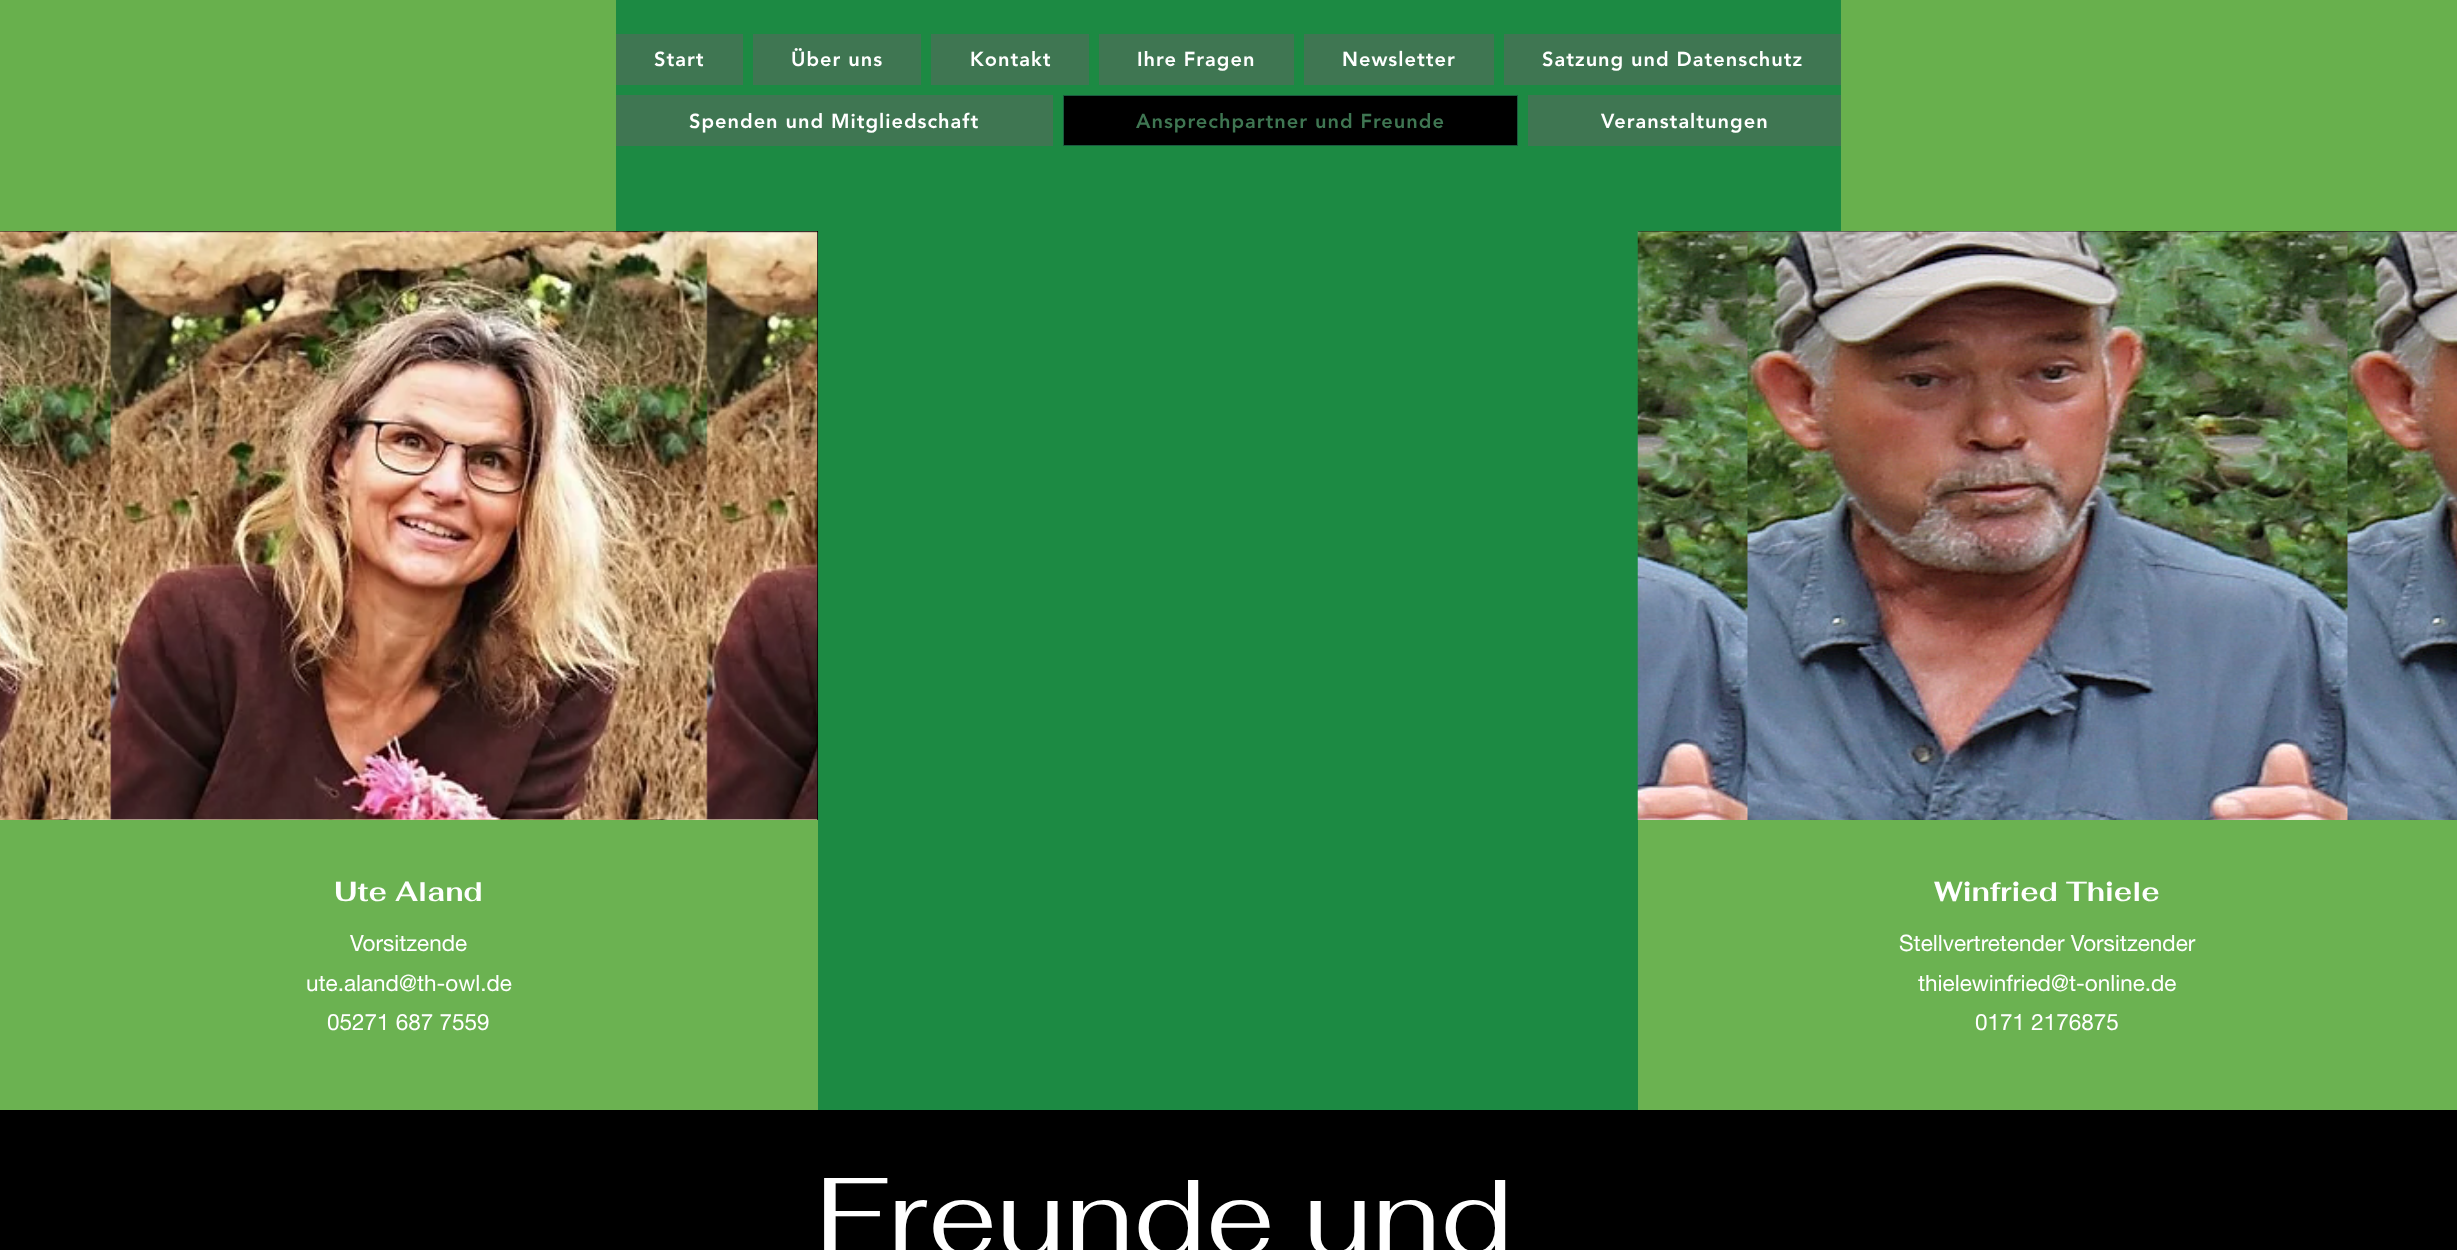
<!DOCTYPE html>
<meta charset="utf-8">
<style>body { margin: 0 } canvas { display: block }</style>
<canvas id="canvas" width="2457" height="1250"></canvas>
<script type="module">
  const canvas = document.getElementById("canvas");
  const g = canvas.getContext("2d");
  g.miterLimit = 4;
  g.fontKerning = "normal";
  function drawText(s, x, y, [font, color]) {
    g.font = font;
    g.fillStyle = color;
    g.fillText(s, x, y);
  }
  function fillBox(x, y, w, h, color) {
    g.fillStyle = color;
    g.fillRect(x, y, w, h);
  }
  async function drawPicture(src, x, y, w, h) {
    const img = new Image();
    img.src = src;
    await img.decode();
    g.drawImage(img, x, y, w, h);
  }

  const s1 = ["900 20px 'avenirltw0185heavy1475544'", "#FFFFFF"];
  const s2 = ["900 20px 'avenirltw0185heavy1475544'", "#3F7652"];
  const s3 = ["bold 27.5px Fahkwang", "#FFFFFF"];
  const s4 = ["22.5px helvetica neue", "#FFFFFF"];
  const s5 = ["110px Fahkwang", "#FFFFFF"];

  fillBox(0, 0, 2457, 1250, "#000000");
  fillBox(0, 0, 2457, 231, "#68B04D");
  fillBox(616, 0, 1225, 231, "#1C8A43");
  fillBox(616, 34, 127, 51, "#3F7652");
  g.letterSpacing = "1px";
  drawText("Start", 654, 66, s1);
  fillBox(753, 34, 168, 51, "#3F7652");
  drawText("Über uns", 791, 66, s1);
  fillBox(931, 34, 158, 51, "#3F7652");
  drawText("Kontakt", 970, 66, s1);
  fillBox(1099, 34, 195, 51, "#3F7652");
  drawText("Ihre Fragen", 1137, 66, s1);
  fillBox(1304, 34, 190, 51, "#3F7652");
  drawText("Newsletter", 1342, 66, s1);
  fillBox(1504, 34, 337, 51, "#3F7652");
  drawText("Satzung und Datenschutz", 1542, 66, s1);
  fillBox(616, 95, 437, 51, "#3F7652");
  drawText("Spenden und Mitgliedschaft", 689, 128, s1);
  g.fillStyle = "#000000";
  g.beginPath();
  g.rect(1063.5, 95.5, 454, 50);
  g.fill();
  g.strokeStyle = "#1B5B3F";
  g.stroke();
  drawText("Ansprechpartner und Freunde", 1136, 128, s2);
  fillBox(1528, 95, 313, 51, "#3F7652");
  drawText("Veranstaltungen", 1601, 128, s1);
  await drawPicture("pic1.png", 0, 231, 818, 589);
  fillBox(818, 231, 820, 879, "#1C8A43");
  await drawPicture("pic2.png", 1637, 231, 820, 589);
  fillBox(0, 820, 818, 290, "#6BB251");
  g.letterSpacing = "0px";
  drawText("Ute Aland", 334, 901, s3);
  drawText("Vorsitzende", 350, 951, s4);
  drawText("ute.aland@th-owl.de", 306, 991, s4);
  drawText("05271 687 7559", 327, 1030, s4);
  fillBox(1638, 820, 819, 290, "#6BB251");
  drawText("Winfried Thiele", 1934, 901, s3);
  drawText("Stellvertretender Vorsitzender", 1899, 951, s4);
  drawText("thielewinfried@t-online.de", 1918, 991, s4);
  drawText("0171 2176875", 1975, 1030, s4);
  drawText("Freunde und", 816, 1255, s5);
</script>
